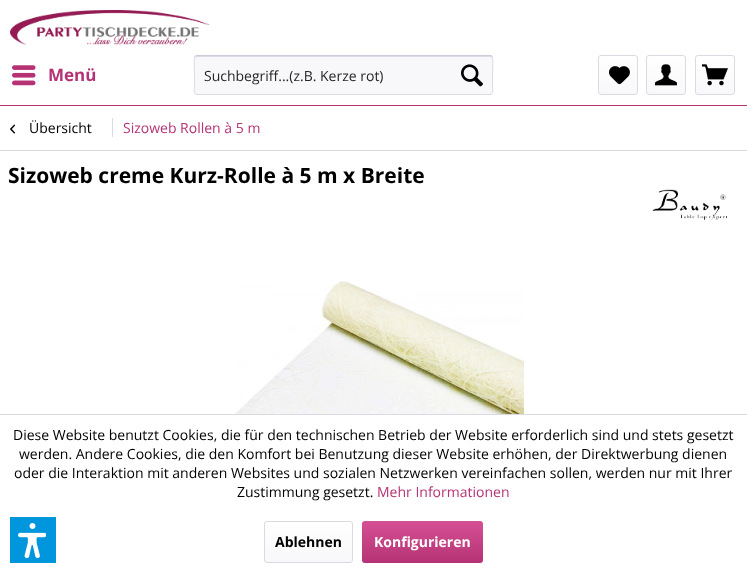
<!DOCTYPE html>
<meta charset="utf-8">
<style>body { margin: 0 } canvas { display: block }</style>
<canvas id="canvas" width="747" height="573"></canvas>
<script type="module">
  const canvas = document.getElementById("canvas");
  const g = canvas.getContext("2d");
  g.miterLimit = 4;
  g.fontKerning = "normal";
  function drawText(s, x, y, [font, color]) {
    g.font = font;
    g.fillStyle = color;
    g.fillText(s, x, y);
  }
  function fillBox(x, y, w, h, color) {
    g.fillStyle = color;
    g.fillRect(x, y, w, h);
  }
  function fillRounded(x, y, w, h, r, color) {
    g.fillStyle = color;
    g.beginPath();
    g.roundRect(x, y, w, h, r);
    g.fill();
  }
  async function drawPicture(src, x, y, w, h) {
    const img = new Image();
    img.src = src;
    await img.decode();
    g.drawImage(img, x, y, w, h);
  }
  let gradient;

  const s1 = ["bold 17px Open Sans", "#B53375"];
  const s2 = ["14px Open Sans", "#262626"];
  const s3 = ["14px Open Sans", "#000000"];
  const s4 = ["14px Open Sans", "#B53375"];
  const s5 = ["bold 21px Open Sans", "#000000"];
  const s6 = ["bold 14px Open Sans", "#000000"];
  const s7 = ["bold 14px Open Sans", "#FFFFFF"];

  fillBox(0, 0, 747, 573, "#FFFFFF");
  fillBox(0, 105, 747, 1, "#B53375");
  await drawPicture("pic1.png", 10, 10, 200, 35);
  await drawPicture("pic2.png", 12, 65, 24, 21);
  drawText("Menü", 48, 81, s1);
  fillRounded(194, 55, 299, 40, 3, "#F8F8FA");
  g.fillStyle = "#DADAE5";
  g.beginPath();
  g.moveTo(197, 57);
  g.lineTo(490, 57);
  g.bezierCurveTo(491, 57, 492, 58, 492, 59);
  g.bezierCurveTo(492, 58, 492, 56, 490, 56);
  g.lineTo(196, 56);
  g.lineTo(195, 59);
  g.bezierCurveTo(195, 58, 196, 57, 197, 57);
  g.closePath();
  g.fill();
  g.beginPath();
  g.moveTo(195, 56);
  g.lineTo(197, 55.5);
  g.lineTo(490, 55.5);
  g.lineTo(492, 56);
  g.strokeStyle = "#CBCBDB";
  g.stroke();
  g.beginPath();
  g.moveTo(492, 56);
  g.bezierCurveTo(493.5, 58, 492.5, 72, 492.5, 75);
  g.lineTo(492.5, 86.5);
  g.bezierCurveTo(492.5, 88, 494, 94.5, 490, 94.5);
  g.lineTo(197, 94.5);
  g.bezierCurveTo(193, 94.5, 194.5, 88, 194.5, 86.5);
  g.lineTo(194.5, 75);
  g.bezierCurveTo(194.5, 72, 193.5, 58, 195, 56);
  g.strokeStyle = "#DADAE5";
  g.stroke();
  drawText("Suchbegriff...(z.B. Kerze rot)", 204, 81, s2);
  await drawPicture("pic3.png", 461, 64, 22, 23);
  gradient = g.createLinearGradient(618, 56, 618, 94);
  gradient.addColorStop(0, "#FFFFFF");
  gradient.addColorStop(1, "#F8F8FA");
  g.fillStyle = gradient;
  g.beginPath();
  g.roundRect(599, 56, 38, 38, 2);
  g.fill();
  g.beginPath();
  g.roundRect(598.5, 55.5, 39, 39, 2.5);
  g.stroke();
  await drawPicture("pic4.png", 609, 66, 21, 19);
  gradient = g.createLinearGradient(666, 56, 666, 94);
  gradient.addColorStop(0, "#FFFFFF");
  gradient.addColorStop(1, "#F8F8FA");
  g.fillStyle = gradient;
  g.beginPath();
  g.roundRect(647, 56, 38, 38, 2);
  g.fill();
  g.beginPath();
  g.roundRect(646.5, 55.5, 39, 39, 2.5);
  g.stroke();
  await drawPicture("pic5.png", 655, 64, 22, 22);
  gradient = g.createLinearGradient(715, 56, 715, 94);
  gradient.addColorStop(0, "#FFFFFF");
  gradient.addColorStop(1, "#F8F8FA");
  g.fillStyle = gradient;
  g.beginPath();
  g.roundRect(696, 56, 38, 38, 2);
  g.fill();
  g.beginPath();
  g.roundRect(695.5, 55.5, 39, 39, 2.5);
  g.stroke();
  await drawPicture("pic6.png", 702, 64, 26, 22);
  fillBox(0, 150, 747, 1, "#DADAE5");
  await drawPicture("pic7.png", 10, 124, 5, 10);
  drawText("Übersicht", 29, 133, s3);
  fillBox(112, 118, 1, 19, "#DADAE5");
  drawText("Sizoweb Rollen à 5 m", 123, 133, s4);
  drawText("Sizoweb creme Kurz-Rolle à 5 m x Breite", 8, 183, s5);
  await drawPicture("pic8.png", 652, 189, 75, 34);
  await drawPicture("pic9.png", 224, 281, 300, 133);
  fillBox(0, 414, 747, 1, "#DADAE5");
  drawText("Diese Website benutzt Cookies, die für den technischen Betrieb der Website erforderlich sind und stets gesetzt", 13, 440, s3);
  drawText("werden. Andere Cookies, die den Komfort bei Benutzung dieser Website erhöhen, der Direktwerbung dienen", 19, 459, s3);
  drawText("oder die Interaktion mit anderen Websites und sozialen Netzwerken vereinfachen sollen, werden nur mit Ihrer", 14, 478, s3);
  drawText("Zustimmung gesetzt.", 237, 497, s3);
  drawText("Mehr Informationen", 377, 497, s4);
  gradient = g.createLinearGradient(309, 522, 309, 562);
  gradient.addColorStop(0, "#FFFFFF");
  gradient.addColorStop(1, "#F8F8FA");
  g.fillStyle = gradient;
  g.beginPath();
  g.roundRect(265, 522, 87, 40, 2);
  g.fill();
  g.beginPath();
  g.roundRect(264.5, 521.5, 88, 41, 2.5);
  g.stroke();
  drawText("Ablehnen", 275, 547, s6);
  gradient = g.createLinearGradient(423, 521, 423, 563);
  gradient.addColorStop(0, "#D55094");
  gradient.addColorStop(1, "#B53375");
  g.fillStyle = gradient;
  g.beginPath();
  g.roundRect(362, 521, 121, 42, 3);
  g.fill();
  drawText("Konfigurieren", 374, 547, s7);
  fillBox(10, 517, 46, 46, "#0096DE");
  await drawPicture("pic10.png", 18, 523, 28, 35);
</script>
